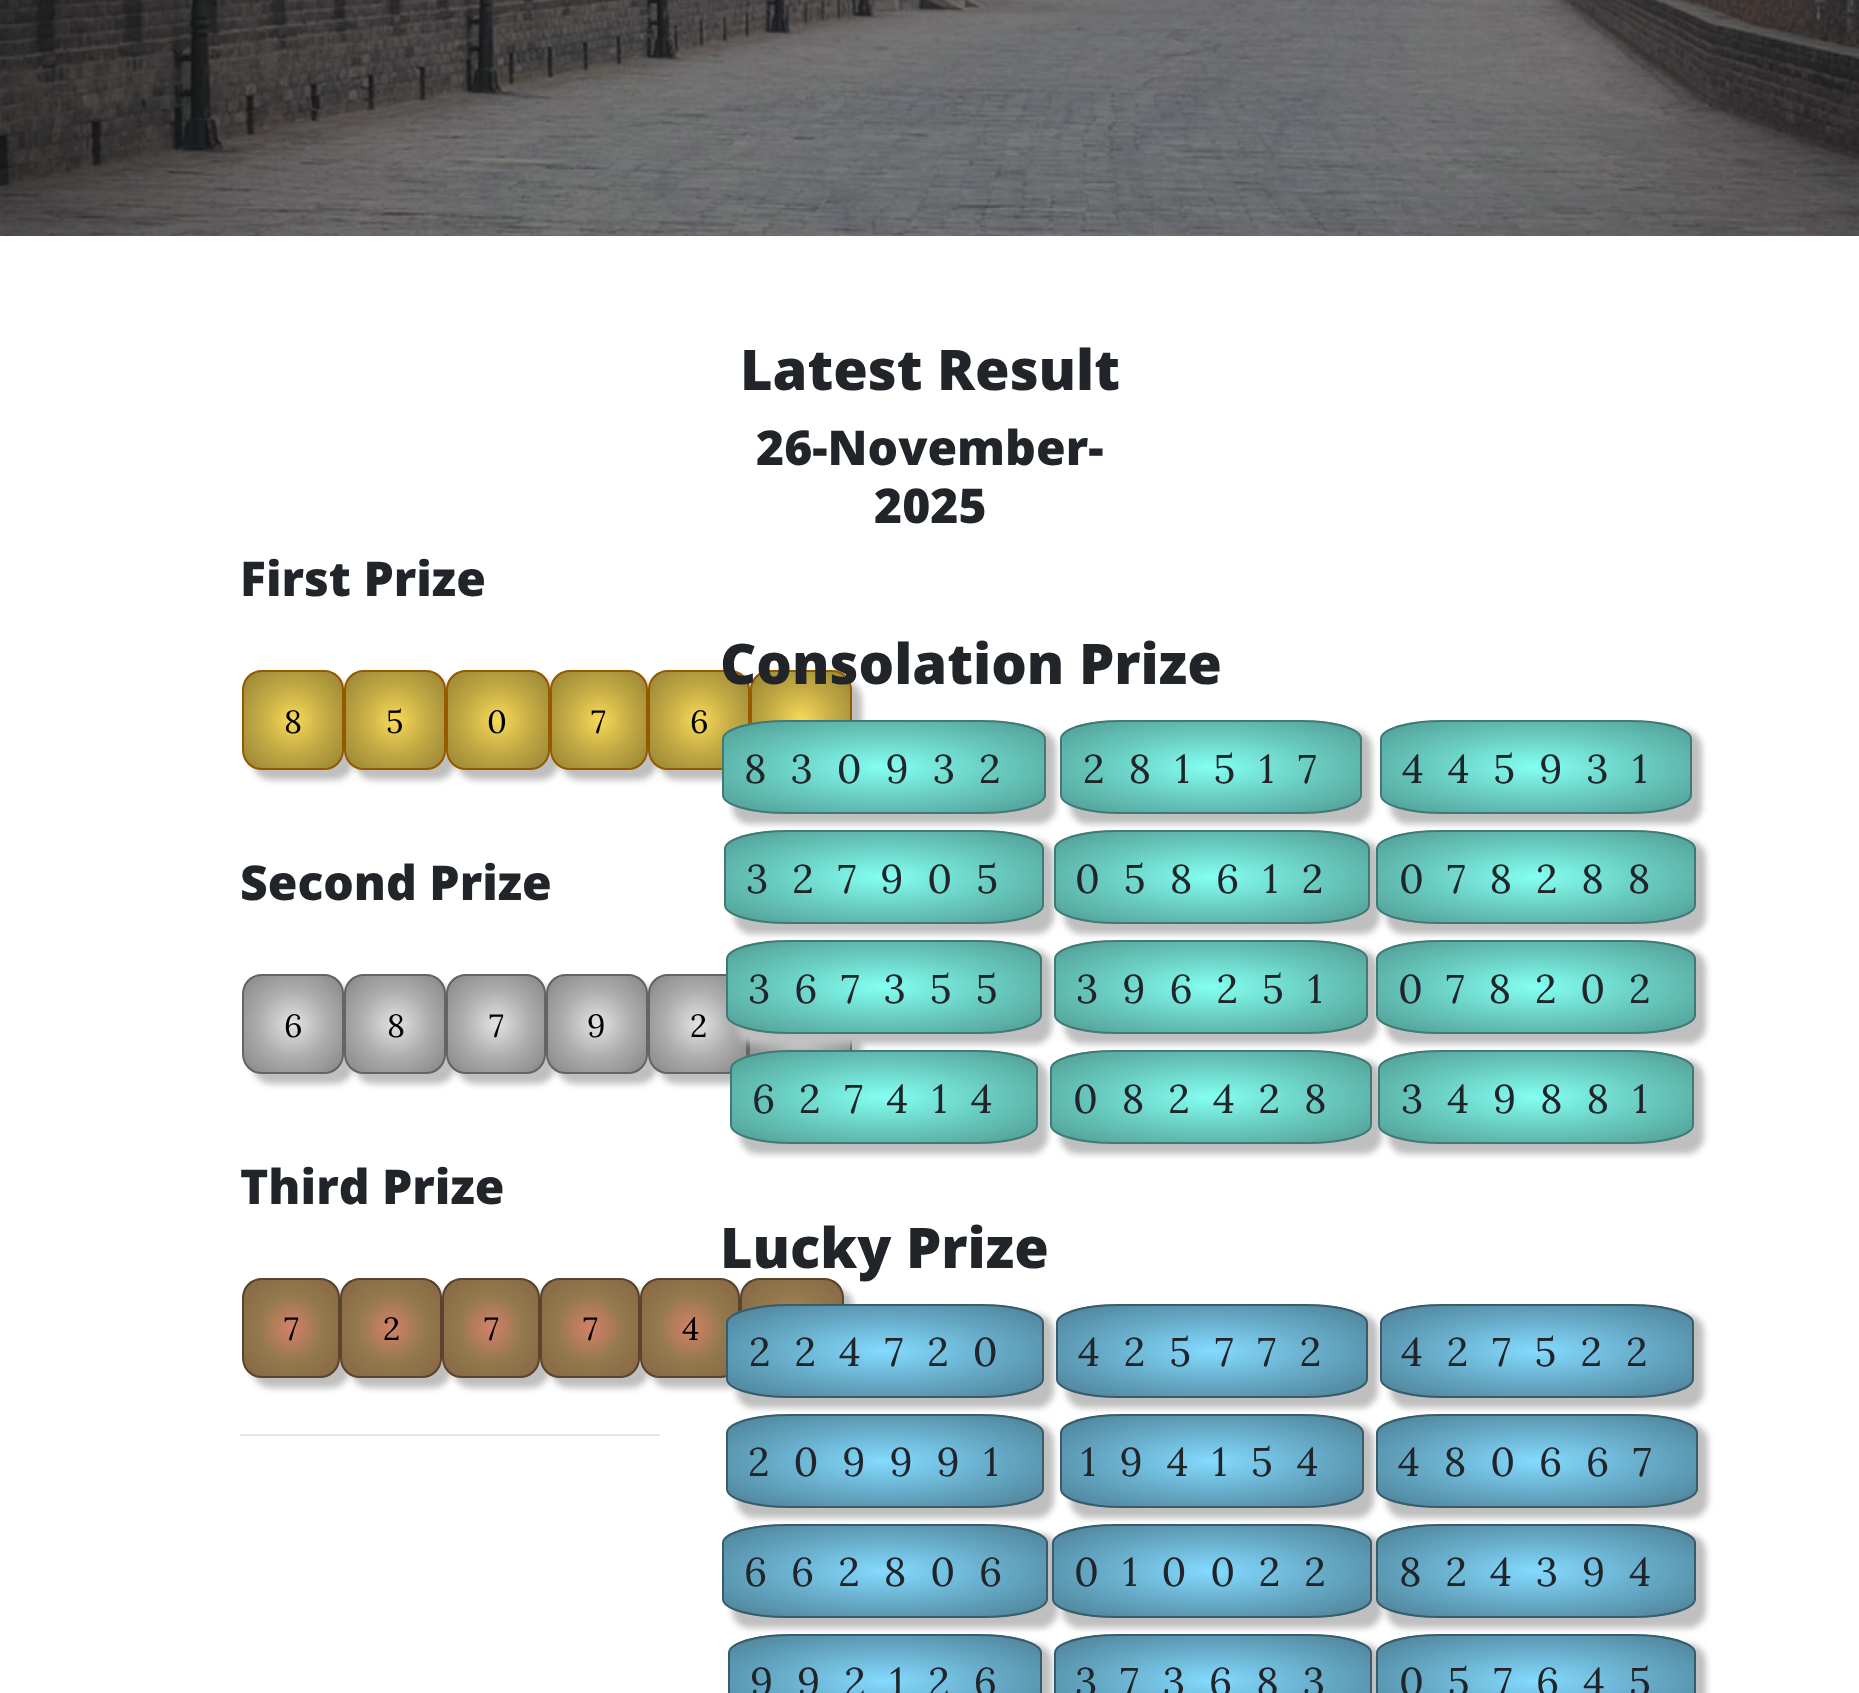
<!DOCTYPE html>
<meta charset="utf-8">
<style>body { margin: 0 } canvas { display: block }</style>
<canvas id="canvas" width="1859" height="1693"></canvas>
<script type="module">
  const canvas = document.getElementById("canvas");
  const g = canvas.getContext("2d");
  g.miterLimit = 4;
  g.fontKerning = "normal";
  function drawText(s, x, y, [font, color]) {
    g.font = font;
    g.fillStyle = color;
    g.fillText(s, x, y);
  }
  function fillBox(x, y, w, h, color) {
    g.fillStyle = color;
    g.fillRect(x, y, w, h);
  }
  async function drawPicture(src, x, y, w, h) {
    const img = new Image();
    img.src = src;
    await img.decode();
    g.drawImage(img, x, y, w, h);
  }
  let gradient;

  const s1 = ["800 56px Open Sans", "#212529"];
  const s2 = ["800 48px Open Sans", "#212529"];
  const s3 = ["32px Lora", "#000000"];
  const s4 = ["40px Lora", "#212529"];

  fillBox(0, 0, 1859, 1693, "#FFFFFF");
  await drawPicture("pic1.png", 0, 0, 1859, 236);
  drawText("Latest Result", 740, 390, s1);
  drawText("26-November-", 756, 465, s2);
  drawText("2025", 874, 523, s2);
  drawText("First Prize", 240, 596, s2);
  g.fillStyle = "#BFBFBF";
  g.filter = "blur(3px)";
  g.beginPath();
  g.roundRect(760, 680, 102, 100, 20);
  g.fill();
  g.filter = "none";
  g.filter = "blur(3px)";
  g.beginPath();
  g.roundRect(658, 680, 102, 100, 20);
  g.fill();
  g.filter = "none";
  g.save();
  g.beginPath();
  g.roundRect(750, 670, 102, 100, 20);
  g.clip();
  gradient = g.createRadialGradient(801, 730.59, 0, 801, 730.59, 69);
  gradient.addColorStop(0, "#F8D958");
  gradient.addColorStop(0.5, "#C1A944");
  gradient.addColorStop(1, "#978435");
  g.fillStyle = gradient;
  g.beginPath();
  g.rect(752, 672, 98, 51);
  g.save();
  g.clip();
  g.scale(1, 68 / 69);
  g.fillRect(0, 0, 1859, 1718);
  g.restore();
  g.restore();
  g.beginPath();
  g.roundRect(751, 671, 100, 98, 19);
  g.strokeStyle = "#975900";
  g.lineWidth = 2;
  g.stroke();
  g.filter = "blur(3px)";
  g.beginPath();
  g.roundRect(252, 680, 102, 100, 20);
  g.fill();
  g.filter = "none";
  g.save();
  g.beginPath();
  g.roundRect(242, 670, 102, 100, 20);
  g.clip();
  gradient = g.createRadialGradient(293, 730.59, 0, 293, 730.59, 69);
  gradient.addColorStop(0, "#F8D958");
  gradient.addColorStop(0.5, "#C1A944");
  gradient.addColorStop(1, "#978435");
  g.fillStyle = gradient;
  g.beginPath();
  g.rect(244, 672, 98, 96);
  g.save();
  g.clip();
  g.scale(1, 68 / 69);
  g.fillRect(0, 0, 1859, 1718);
  g.restore();
  g.restore();
  g.beginPath();
  g.roundRect(243, 671, 100, 98, 19);
  g.stroke();
  drawText("8", 284, 733, s3);
  g.fillStyle = "#BFBFBF";
  g.filter = "blur(3px)";
  g.beginPath();
  g.roundRect(354, 680, 102, 100, 20);
  g.fill();
  g.filter = "none";
  g.save();
  g.beginPath();
  g.roundRect(344, 670, 102, 100, 20);
  g.clip();
  gradient = g.createRadialGradient(395, 730.59, 0, 395, 730.59, 69);
  gradient.addColorStop(0, "#F8D958");
  gradient.addColorStop(0.5, "#C1A944");
  gradient.addColorStop(1, "#978435");
  g.fillStyle = gradient;
  g.beginPath();
  g.rect(346, 672, 98, 96);
  g.save();
  g.clip();
  g.scale(1, 68 / 69);
  g.fillRect(0, 0, 1859, 1718);
  g.restore();
  g.restore();
  g.beginPath();
  g.roundRect(345, 671, 100, 98, 19);
  g.stroke();
  drawText("5", 386, 733, s3);
  g.fillStyle = "#BFBFBF";
  g.filter = "blur(3px)";
  g.beginPath();
  g.roundRect(456, 680, 104, 100, 20);
  g.fill();
  g.filter = "none";
  g.save();
  g.beginPath();
  g.roundRect(446, 670, 104, 100, 20);
  g.clip();
  gradient = g.createRadialGradient(498, 751.76, 0, 498, 751.76, 71);
  gradient.addColorStop(0, "#F8D958");
  gradient.addColorStop(0.5, "#C1A944");
  gradient.addColorStop(1, "#978435");
  g.fillStyle = gradient;
  g.beginPath();
  g.rect(448, 672, 100, 96);
  g.save();
  g.clip();
  g.scale(1, 68 / 71);
  g.fillRect(0, 0, 1859, 1768);
  g.restore();
  g.restore();
  g.beginPath();
  g.roundRect(447, 671, 102, 98, 19);
  g.stroke();
  drawText("0", 487, 733, s3);
  g.fillStyle = "#BFBFBF";
  g.filter = "blur(3px)";
  g.beginPath();
  g.roundRect(560, 680, 98, 100, 20);
  g.fill();
  g.filter = "none";
  g.save();
  g.beginPath();
  g.roundRect(550, 670, 98, 100, 20);
  g.clip();
  gradient = g.createRadialGradient(599, 698.82, 0, 599, 698.82, 66);
  gradient.addColorStop(0, "#F8D958");
  gradient.addColorStop(0.5, "#C1A944");
  gradient.addColorStop(1, "#978435");
  g.fillStyle = gradient;
  g.beginPath();
  g.rect(552, 672, 94, 96);
  g.save();
  g.clip();
  g.scale(1, 68 / 66);
  g.fillRect(0, 0, 1859, 1644);
  g.restore();
  g.restore();
  g.beginPath();
  g.roundRect(551, 671, 96, 98, 19);
  g.stroke();
  drawText("7", 591, 733, s3);
  g.save();
  g.beginPath();
  g.roundRect(648, 670, 102, 100, 20);
  g.clip();
  gradient = g.createRadialGradient(699, 730.59, 0, 699, 730.59, 69);
  gradient.addColorStop(0, "#F8D958");
  gradient.addColorStop(0.5, "#C1A944");
  gradient.addColorStop(1, "#978435");
  g.fillStyle = gradient;
  g.beginPath();
  g.rect(650, 672, 98, 96);
  g.save();
  g.clip();
  g.scale(1, 68 / 69);
  g.fillRect(0, 0, 1859, 1718);
  g.restore();
  g.restore();
  g.beginPath();
  g.roundRect(649, 671, 100, 98, 19);
  g.stroke();
  drawText("6", 690, 733, s3);
  drawText("Second Prize", 240, 900, s2);
  g.fillStyle = "#BFBFBF";
  g.filter = "blur(3px)";
  g.beginPath();
  g.roundRect(758, 984, 104, 100, 20);
  g.fill();
  g.filter = "none";
  g.filter = "blur(3px)";
  g.beginPath();
  g.roundRect(252, 984, 102, 100, 20);
  g.fill();
  g.filter = "none";
  g.save();
  g.beginPath();
  g.roundRect(242, 974, 102, 100, 20);
  g.clip();
  gradient = g.createRadialGradient(293, 1039.06, 0, 293, 1039.06, 69);
  gradient.addColorStop(0, "#E3E3E3");
  gradient.addColorStop(0.5, "#ADADAD");
  gradient.addColorStop(1, "#868686");
  g.fillStyle = gradient;
  g.beginPath();
  g.rect(244, 976, 98, 96);
  g.save();
  g.clip();
  g.scale(1, 68 / 69);
  g.fillRect(0, 0, 1859, 1718);
  g.restore();
  g.restore();
  g.beginPath();
  g.roundRect(243, 975, 100, 98, 19);
  g.strokeStyle = "#646464";
  g.stroke();
  drawText("6", 284, 1037, s3);
  g.fillStyle = "#BFBFBF";
  g.filter = "blur(3px)";
  g.beginPath();
  g.roundRect(354, 984, 102, 100, 20);
  g.fill();
  g.filter = "none";
  g.save();
  g.beginPath();
  g.roundRect(344, 974, 102, 100, 20);
  g.clip();
  gradient = g.createRadialGradient(395, 1039.06, 0, 395, 1039.06, 69);
  gradient.addColorStop(0, "#E3E3E3");
  gradient.addColorStop(0.5, "#ADADAD");
  gradient.addColorStop(1, "#868686");
  g.fillStyle = gradient;
  g.beginPath();
  g.rect(346, 976, 98, 96);
  g.save();
  g.clip();
  g.scale(1, 68 / 69);
  g.fillRect(0, 0, 1859, 1718);
  g.restore();
  g.restore();
  g.beginPath();
  g.roundRect(345, 975, 100, 98, 19);
  g.stroke();
  drawText("8", 387, 1037, s3);
  g.fillStyle = "#BFBFBF";
  g.filter = "blur(3px)";
  g.beginPath();
  g.roundRect(456, 984, 100, 100, 20);
  g.fill();
  g.filter = "none";
  g.save();
  g.beginPath();
  g.roundRect(446, 974, 100, 100, 20);
  g.clip();
  gradient = g.createRadialGradient(496, 1024, 0, 496, 1024, 68);
  gradient.addColorStop(0, "#E3E3E3");
  gradient.addColorStop(0.5, "#ADADAD");
  gradient.addColorStop(1, "#868686");
  g.fillStyle = gradient;
  g.fillRect(448, 976, 96, 96);
  g.restore();
  g.beginPath();
  g.roundRect(447, 975, 98, 98, 19);
  g.stroke();
  drawText("7", 489, 1037, s3);
  g.fillStyle = "#BFBFBF";
  g.filter = "blur(3px)";
  g.beginPath();
  g.roundRect(556, 984, 102, 100, 20);
  g.fill();
  g.filter = "none";
  g.save();
  g.beginPath();
  g.roundRect(546, 974, 102, 100, 20);
  g.clip();
  gradient = g.createRadialGradient(597, 1039.06, 0, 597, 1039.06, 69);
  gradient.addColorStop(0, "#E3E3E3");
  gradient.addColorStop(0.5, "#ADADAD");
  gradient.addColorStop(1, "#868686");
  g.fillStyle = gradient;
  g.beginPath();
  g.rect(548, 976, 98, 96);
  g.save();
  g.clip();
  g.scale(1, 68 / 69);
  g.fillRect(0, 0, 1859, 1718);
  g.restore();
  g.restore();
  g.beginPath();
  g.roundRect(547, 975, 100, 98, 19);
  g.stroke();
  drawText("9", 587, 1037, s3);
  g.fillStyle = "#BFBFBF";
  g.filter = "blur(3px)";
  g.beginPath();
  g.roundRect(658, 984, 100, 100, 20);
  g.fill();
  g.filter = "none";
  g.save();
  g.beginPath();
  g.roundRect(648, 974, 100, 100, 20);
  g.clip();
  gradient = g.createRadialGradient(698, 1024, 0, 698, 1024, 68);
  gradient.addColorStop(0, "#E3E3E3");
  gradient.addColorStop(0.5, "#ADADAD");
  gradient.addColorStop(1, "#868686");
  g.fillStyle = gradient;
  g.fillRect(650, 976, 96, 96);
  g.restore();
  g.beginPath();
  g.roundRect(649, 975, 98, 98, 19);
  g.stroke();
  drawText("2", 690, 1037, s3);
  gradient = g.createRadialGradient(800, 1069.18, 0, 800, 1069.18, 71);
  gradient.addColorStop(0, "#E3E3E3");
  gradient.addColorStop(0.5, "#ADADAD");
  gradient.addColorStop(1, "#868686");
  g.fillStyle = gradient;
  g.beginPath();
  g.rect(750, 1030, 100, 25);
  g.save();
  g.clip();
  g.scale(1, 68 / 71);
  g.fillRect(0, 0, 1859, 1768);
  g.restore();
  g.beginPath();
  g.roundRect(749, 975, 102, 98, 19);
  g.stroke();
  drawText("Third Prize", 240, 1204, s2);
  g.fillStyle = "#BFBFBF";
  g.filter = "blur(3px)";
  g.beginPath();
  g.roundRect(750, 1288, 104, 100, 20);
  g.fill();
  g.filter = "none";
  g.filter = "blur(3px)";
  g.beginPath();
  g.roundRect(650, 1288, 100, 100, 20);
  g.fill();
  g.filter = "none";
  g.save();
  g.beginPath();
  g.roundRect(740, 1278, 104, 100, 20);
  g.clip();
  gradient = g.createRadialGradient(792, 1386.59, 0, 792, 1386.59, 71);
  gradient.addColorStop(0, "#D4816A");
  gradient.addColorStop(0.5, "#92794B");
  gradient.addColorStop(1, "#876645");
  g.fillStyle = gradient;
  g.beginPath();
  g.rect(742, 1280, 100, 31);
  g.save();
  g.clip();
  g.scale(1, 68 / 71);
  g.fillRect(0, 0, 1859, 1768);
  g.restore();
  g.restore();
  g.beginPath();
  g.roundRect(741, 1279, 102, 98, 19);
  g.strokeStyle = "#5A442E";
  g.stroke();
  g.filter = "blur(3px)";
  g.beginPath();
  g.roundRect(252, 1288, 98, 100, 20);
  g.fill();
  g.filter = "none";
  g.save();
  g.beginPath();
  g.roundRect(242, 1278, 98, 100, 20);
  g.clip();
  gradient = g.createRadialGradient(291, 1288.94, 0, 291, 1288.94, 66);
  gradient.addColorStop(0, "#D4816A");
  gradient.addColorStop(0.5, "#92794B");
  gradient.addColorStop(1, "#876645");
  g.fillStyle = gradient;
  g.beginPath();
  g.rect(244, 1280, 94, 96);
  g.save();
  g.clip();
  g.scale(1, 68 / 66);
  g.fillRect(0, 0, 1859, 1644);
  g.restore();
  g.restore();
  g.beginPath();
  g.roundRect(243, 1279, 96, 98, 19);
  g.stroke();
  drawText("7", 284, 1340, s3);
  g.fillStyle = "#BFBFBF";
  g.filter = "blur(3px)";
  g.beginPath();
  g.roundRect(350, 1288, 102, 100, 20);
  g.fill();
  g.filter = "none";
  g.save();
  g.beginPath();
  g.roundRect(340, 1278, 102, 100, 20);
  g.clip();
  gradient = g.createRadialGradient(391, 1347.53, 0, 391, 1347.53, 69);
  gradient.addColorStop(0, "#D4816A");
  gradient.addColorStop(0.5, "#92794B");
  gradient.addColorStop(1, "#876645");
  g.fillStyle = gradient;
  g.beginPath();
  g.rect(342, 1280, 98, 96);
  g.save();
  g.clip();
  g.scale(1, 68 / 69);
  g.fillRect(0, 0, 1859, 1718);
  g.restore();
  g.restore();
  g.beginPath();
  g.roundRect(341, 1279, 100, 98, 19);
  g.stroke();
  drawText("2", 383, 1340, s3);
  g.fillStyle = "#BFBFBF";
  g.filter = "blur(3px)";
  g.beginPath();
  g.roundRect(452, 1288, 98, 100, 20);
  g.fill();
  g.filter = "none";
  g.save();
  g.beginPath();
  g.roundRect(442, 1278, 98, 100, 20);
  g.clip();
  gradient = g.createRadialGradient(491, 1288.94, 0, 491, 1288.94, 66);
  gradient.addColorStop(0, "#D4816A");
  gradient.addColorStop(0.5, "#92794B");
  gradient.addColorStop(1, "#876645");
  g.fillStyle = gradient;
  g.beginPath();
  g.rect(444, 1280, 94, 96);
  g.save();
  g.clip();
  g.scale(1, 68 / 66);
  g.fillRect(0, 0, 1859, 1644);
  g.restore();
  g.restore();
  g.beginPath();
  g.roundRect(443, 1279, 96, 98, 19);
  g.stroke();
  drawText("7", 484, 1340, s3);
  g.fillStyle = "#BFBFBF";
  g.filter = "blur(3px)";
  g.beginPath();
  g.roundRect(550, 1288, 100, 100, 20);
  g.fill();
  g.filter = "none";
  g.save();
  g.beginPath();
  g.roundRect(540, 1278, 100, 100, 20);
  g.clip();
  gradient = g.createRadialGradient(590, 1328, 0, 590, 1328, 68);
  gradient.addColorStop(0, "#D4816A");
  gradient.addColorStop(0.5, "#92794B");
  gradient.addColorStop(1, "#876645");
  g.fillStyle = gradient;
  g.fillRect(542, 1280, 96, 96);
  g.restore();
  g.beginPath();
  g.roundRect(541, 1279, 98, 98, 19);
  g.stroke();
  drawText("7", 583, 1340, s3);
  g.save();
  g.beginPath();
  g.roundRect(640, 1278, 100, 100, 20);
  g.clip();
  gradient = g.createRadialGradient(690, 1328, 0, 690, 1328, 68);
  gradient.addColorStop(0, "#D4816A");
  gradient.addColorStop(0.5, "#92794B");
  gradient.addColorStop(1, "#876645");
  g.fillStyle = gradient;
  g.fillRect(642, 1280, 96, 96);
  g.restore();
  g.beginPath();
  g.roundRect(641, 1279, 98, 98, 19);
  g.stroke();
  drawText("4", 682, 1340, s3);
  fillBox(240, 1434, 420, 2, "#E6E6E6");
  drawText("Consolation Prize", 720, 684, s1);
  g.fillStyle = "#BFBFBF";
  g.filter = "blur(3px)";
  g.beginPath();
  g.roundRect(732, 730, 324, 94, 18);
  g.fill();
  g.filter = "none";
  gradient = g.createRadialGradient(884, 2708.47, 0, 884, 2708.47, 226);
  gradient.addColorStop(0, "#84FFF2");
  gradient.addColorStop(0.5, "#69CBC0");
  gradient.addColorStop(1, "#509B93");
  g.fillStyle = gradient;
  g.beginPath();
  g.moveTo(724, 734);
  g.bezierCurveTo(729, 729, 741, 724, 758, 722);
  g.lineTo(1010, 722);
  g.bezierCurveTo(1027, 724, 1039, 729, 1044, 734);
  g.lineTo(1044, 800);
  g.bezierCurveTo(1039, 805, 1027, 810, 1010, 812);
  g.lineTo(758, 812);
  g.bezierCurveTo(741, 810, 729, 805, 724, 800);
  g.closePath();
  g.save();
  g.clip();
  g.scale(1, 64 / 226);
  g.fillRect(0, 0, 1859, 5979);
  g.restore();
  g.beginPath();
  g.moveTo(787, 721);
  g.lineTo(981, 721);
  g.bezierCurveTo(1016.5, 721, 1045, 729, 1045, 739);
  g.lineTo(1045, 795);
  g.bezierCurveTo(1045, 805, 1016.5, 813, 981, 813);
  g.lineTo(787, 813);
  g.bezierCurveTo(751.5, 813, 723, 805, 723, 795);
  g.lineTo(723, 739);
  g.bezierCurveTo(723, 729, 751.5, 721, 787, 721);
  g.closePath();
  g.strokeStyle = "#417A74";
  g.stroke();
  g.letterSpacing = "24px";
  drawText("830932", 744, 783, s4);
  g.fillStyle = "#BFBFBF";
  g.filter = "blur(3px)";
  g.beginPath();
  g.roundRect(1070, 730, 302, 94, 18);
  g.fill();
  g.filter = "none";
  gradient = g.createRadialGradient(1211, 2528.7, 0, 1211, 2528.7, 211);
  gradient.addColorStop(0, "#84FFF2");
  gradient.addColorStop(0.5, "#69CBC0");
  gradient.addColorStop(1, "#509B93");
  g.fillStyle = gradient;
  g.beginPath();
  g.moveTo(1062, 734);
  g.bezierCurveTo(1066, 729, 1078, 724, 1093, 722);
  g.lineTo(1329, 722);
  g.bezierCurveTo(1344, 724, 1356, 729, 1360, 734);
  g.lineTo(1360, 800);
  g.bezierCurveTo(1356, 805, 1344, 810, 1329, 812);
  g.lineTo(1093, 812);
  g.bezierCurveTo(1078, 810, 1066, 805, 1062, 800);
  g.closePath();
  g.save();
  g.clip();
  g.scale(1, 64 / 211);
  g.fillRect(0, 0, 1859, 5582);
  g.restore();
  g.beginPath();
  g.moveTo(1120.5, 721);
  g.lineTo(1301.5, 721);
  g.bezierCurveTo(1334.5, 721, 1361, 729, 1361, 739);
  g.lineTo(1361, 795);
  g.bezierCurveTo(1361, 805, 1334.5, 813, 1301.5, 813);
  g.lineTo(1120.5, 813);
  g.bezierCurveTo(1087.5, 813, 1061, 805, 1061, 795);
  g.lineTo(1061, 739);
  g.bezierCurveTo(1061, 729, 1087.5, 721, 1120.5, 721);
  g.closePath();
  g.stroke();
  drawText("281517", 1083, 783, s4);
  g.fillStyle = "#BFBFBF";
  g.filter = "blur(3px)";
  g.beginPath();
  g.roundRect(1390, 730, 312, 94, 18);
  g.fill();
  g.filter = "none";
  gradient = g.createRadialGradient(1536, 2612.59, 0, 1536, 2612.59, 218);
  gradient.addColorStop(0, "#84FFF2");
  gradient.addColorStop(0.5, "#69CBC0");
  gradient.addColorStop(1, "#509B93");
  g.fillStyle = gradient;
  g.beginPath();
  g.moveTo(1382, 734);
  g.bezierCurveTo(1387, 729, 1399, 724, 1414, 722);
  g.lineTo(1658, 722);
  g.bezierCurveTo(1673, 724, 1685, 729, 1690, 734);
  g.lineTo(1690, 800);
  g.bezierCurveTo(1685, 805, 1673, 810, 1658, 812);
  g.lineTo(1414, 812);
  g.bezierCurveTo(1399, 810, 1387, 805, 1382, 800);
  g.closePath();
  g.save();
  g.clip();
  g.scale(1, 64 / 218);
  g.fillRect(0, 0, 1859, 5767);
  g.restore();
  g.beginPath();
  g.moveTo(1442.5, 721);
  g.lineTo(1629.5, 721);
  g.bezierCurveTo(1663.5, 721, 1691, 729, 1691, 739);
  g.lineTo(1691, 795);
  g.bezierCurveTo(1691, 805, 1663.5, 813, 1629.5, 813);
  g.lineTo(1442.5, 813);
  g.bezierCurveTo(1408.5, 813, 1381, 805, 1381, 795);
  g.lineTo(1381, 739);
  g.bezierCurveTo(1381, 729, 1408.5, 721, 1442.5, 721);
  g.closePath();
  g.stroke();
  drawText("445931", 1402, 783, s4);
  g.fillStyle = "#BFBFBF";
  g.filter = "blur(3px)";
  g.beginPath();
  g.roundRect(734, 840, 320, 94, 18);
  g.fill();
  g.filter = "none";
  gradient = g.createRadialGradient(884, 3055.8, 0, 884, 3055.8, 223);
  gradient.addColorStop(0, "#84FFF2");
  gradient.addColorStop(0.5, "#69CBC0");
  gradient.addColorStop(1, "#509B93");
  g.fillStyle = gradient;
  g.beginPath();
  g.moveTo(726, 844);
  g.bezierCurveTo(731, 839, 743, 834, 759, 832);
  g.lineTo(1009, 832);
  g.bezierCurveTo(1025, 834, 1037, 839, 1042, 844);
  g.lineTo(1042, 910);
  g.bezierCurveTo(1037, 915, 1025, 920, 1009, 922);
  g.lineTo(759, 922);
  g.bezierCurveTo(743, 920, 731, 915, 726, 910);
  g.closePath();
  g.save();
  g.clip();
  g.scale(1, 64 / 223);
  g.fillRect(0, 0, 1859, 5900);
  g.restore();
  g.beginPath();
  g.moveTo(788, 831);
  g.lineTo(980, 831);
  g.bezierCurveTo(1015, 831, 1043, 839, 1043, 849);
  g.lineTo(1043, 905);
  g.bezierCurveTo(1043, 915, 1015, 923, 980, 923);
  g.lineTo(788, 923);
  g.bezierCurveTo(753, 923, 725, 915, 725, 905);
  g.lineTo(725, 849);
  g.bezierCurveTo(725, 839, 753, 831, 788, 831);
  g.closePath();
  g.stroke();
  drawText("327905", 746, 893, s4);
  g.fillStyle = "#BFBFBF";
  g.filter = "blur(3px)";
  g.beginPath();
  g.roundRect(1064, 840, 316, 94, 18);
  g.fill();
  g.filter = "none";
  gradient = g.createRadialGradient(1212, 3028.39, 0, 1212, 3028.39, 221);
  gradient.addColorStop(0, "#84FFF2");
  gradient.addColorStop(0.5, "#69CBC0");
  gradient.addColorStop(1, "#509B93");
  g.fillStyle = gradient;
  g.beginPath();
  g.moveTo(1056, 844);
  g.bezierCurveTo(1061, 839, 1073, 834, 1089, 832);
  g.lineTo(1335, 832);
  g.bezierCurveTo(1351, 834, 1363, 839, 1368, 844);
  g.lineTo(1368, 910);
  g.bezierCurveTo(1363, 915, 1351, 920, 1335, 922);
  g.lineTo(1089, 922);
  g.bezierCurveTo(1073, 920, 1061, 915, 1056, 910);
  g.closePath();
  g.save();
  g.clip();
  g.scale(1, 64 / 221);
  g.fillRect(0, 0, 1859, 5847);
  g.restore();
  g.beginPath();
  g.moveTo(1117, 831);
  g.lineTo(1307, 831);
  g.bezierCurveTo(1341, 831, 1369, 839, 1369, 849);
  g.lineTo(1369, 905);
  g.bezierCurveTo(1369, 915, 1341, 923, 1307, 923);
  g.lineTo(1117, 923);
  g.bezierCurveTo(1083, 923, 1055, 915, 1055, 905);
  g.lineTo(1055, 849);
  g.bezierCurveTo(1055, 839, 1083, 831, 1117, 831);
  g.closePath();
  g.stroke();
  drawText("058612", 1075, 893, s4);
  g.fillStyle = "#BFBFBF";
  g.filter = "blur(3px)";
  g.beginPath();
  g.roundRect(1386, 840, 320, 94, 18);
  g.fill();
  g.filter = "none";
  gradient = g.createRadialGradient(1536, 3055.8, 0, 1536, 3055.8, 223);
  gradient.addColorStop(0, "#84FFF2");
  gradient.addColorStop(0.5, "#69CBC0");
  gradient.addColorStop(1, "#509B93");
  g.fillStyle = gradient;
  g.beginPath();
  g.moveTo(1378, 844);
  g.bezierCurveTo(1383, 839, 1395, 834, 1411, 832);
  g.lineTo(1661, 832);
  g.bezierCurveTo(1677, 834, 1689, 839, 1694, 844);
  g.lineTo(1694, 910);
  g.bezierCurveTo(1689, 915, 1677, 920, 1661, 922);
  g.lineTo(1411, 922);
  g.bezierCurveTo(1395, 920, 1383, 915, 1378, 910);
  g.closePath();
  g.save();
  g.clip();
  g.scale(1, 64 / 223);
  g.fillRect(0, 0, 1859, 5900);
  g.restore();
  g.beginPath();
  g.moveTo(1440, 831);
  g.lineTo(1632, 831);
  g.bezierCurveTo(1667, 831, 1695, 839, 1695, 849);
  g.lineTo(1695, 905);
  g.bezierCurveTo(1695, 915, 1667, 923, 1632, 923);
  g.lineTo(1440, 923);
  g.bezierCurveTo(1405, 923, 1377, 915, 1377, 905);
  g.lineTo(1377, 849);
  g.bezierCurveTo(1377, 839, 1405, 831, 1440, 831);
  g.closePath();
  g.stroke();
  drawText("078288", 1399, 893, s4);
  g.fillStyle = "#BFBFBF";
  g.filter = "blur(3px)";
  g.beginPath();
  g.roundRect(736, 950, 316, 94, 18);
  g.fill();
  g.filter = "none";
  gradient = g.createRadialGradient(884, 3408.23, 0, 884, 3408.23, 221);
  gradient.addColorStop(0, "#84FFF2");
  gradient.addColorStop(0.5, "#69CBC0");
  gradient.addColorStop(1, "#509B93");
  g.fillStyle = gradient;
  g.beginPath();
  g.moveTo(728, 954);
  g.bezierCurveTo(733, 949, 745, 944, 761, 942);
  g.lineTo(1007, 942);
  g.bezierCurveTo(1023, 944, 1035, 949, 1040, 954);
  g.lineTo(1040, 1020);
  g.bezierCurveTo(1035, 1025, 1023, 1030, 1007, 1032);
  g.lineTo(761, 1032);
  g.bezierCurveTo(745, 1030, 733, 1025, 728, 1020);
  g.closePath();
  g.save();
  g.clip();
  g.scale(1, 64 / 221);
  g.fillRect(0, 0, 1859, 5847);
  g.restore();
  g.beginPath();
  g.moveTo(789, 941);
  g.lineTo(979, 941);
  g.bezierCurveTo(1013, 941, 1041, 949, 1041, 959);
  g.lineTo(1041, 1015);
  g.bezierCurveTo(1041, 1025, 1013, 1033, 979, 1033);
  g.lineTo(789, 1033);
  g.bezierCurveTo(755, 1033, 727, 1025, 727, 1015);
  g.lineTo(727, 959);
  g.bezierCurveTo(727, 949, 755, 941, 789, 941);
  g.closePath();
  g.stroke();
  drawText("367355", 748, 1003, s4);
  g.fillStyle = "#BFBFBF";
  g.filter = "blur(3px)";
  g.beginPath();
  g.roundRect(1064, 950, 314, 94, 18);
  g.fill();
  g.filter = "none";
  gradient = g.createRadialGradient(1211, 3377.39, 0, 1211, 3377.39, 219);
  gradient.addColorStop(0, "#84FFF2");
  gradient.addColorStop(0.5, "#69CBC0");
  gradient.addColorStop(1, "#509B93");
  g.fillStyle = gradient;
  g.beginPath();
  g.moveTo(1056, 954);
  g.bezierCurveTo(1061, 949, 1073, 944, 1089, 942);
  g.lineTo(1333, 942);
  g.bezierCurveTo(1349, 944, 1361, 949, 1366, 954);
  g.lineTo(1366, 1020);
  g.bezierCurveTo(1361, 1025, 1349, 1030, 1333, 1032);
  g.lineTo(1089, 1032);
  g.bezierCurveTo(1073, 1030, 1061, 1025, 1056, 1020);
  g.closePath();
  g.save();
  g.clip();
  g.scale(1, 64 / 219);
  g.fillRect(0, 0, 1859, 5794);
  g.restore();
  g.beginPath();
  g.moveTo(1117, 941);
  g.lineTo(1305, 941);
  g.bezierCurveTo(1339.5, 941, 1367, 949, 1367, 959);
  g.lineTo(1367, 1015);
  g.bezierCurveTo(1367, 1025, 1339.5, 1033, 1305, 1033);
  g.lineTo(1117, 1033);
  g.bezierCurveTo(1082.5, 1033, 1055, 1025, 1055, 1015);
  g.lineTo(1055, 959);
  g.bezierCurveTo(1055, 949, 1082.5, 941, 1117, 941);
  g.closePath();
  g.stroke();
  drawText("396251", 1076, 1003, s4);
  g.fillStyle = "#BFBFBF";
  g.filter = "blur(3px)";
  g.beginPath();
  g.roundRect(1386, 950, 320, 94, 18);
  g.fill();
  g.filter = "none";
  gradient = g.createRadialGradient(1536, 3439.08, 0, 1536, 3439.08, 223);
  gradient.addColorStop(0, "#84FFF2");
  gradient.addColorStop(0.5, "#69CBC0");
  gradient.addColorStop(1, "#509B93");
  g.fillStyle = gradient;
  g.beginPath();
  g.moveTo(1378, 954);
  g.bezierCurveTo(1383, 949, 1395, 944, 1411, 942);
  g.lineTo(1661, 942);
  g.bezierCurveTo(1677, 944, 1689, 949, 1694, 954);
  g.lineTo(1694, 1020);
  g.bezierCurveTo(1689, 1025, 1677, 1030, 1661, 1032);
  g.lineTo(1411, 1032);
  g.bezierCurveTo(1395, 1030, 1383, 1025, 1378, 1020);
  g.closePath();
  g.save();
  g.clip();
  g.scale(1, 64 / 223);
  g.fillRect(0, 0, 1859, 5900);
  g.restore();
  g.beginPath();
  g.moveTo(1440, 941);
  g.lineTo(1632, 941);
  g.bezierCurveTo(1667, 941, 1695, 949, 1695, 959);
  g.lineTo(1695, 1015);
  g.bezierCurveTo(1695, 1025, 1667, 1033, 1632, 1033);
  g.lineTo(1440, 1033);
  g.bezierCurveTo(1405, 1033, 1377, 1025, 1377, 1015);
  g.lineTo(1377, 959);
  g.bezierCurveTo(1377, 949, 1405, 941, 1440, 941);
  g.closePath();
  g.stroke();
  drawText("078202", 1398, 1003, s4);
  g.fillStyle = "#BFBFBF";
  g.filter = "blur(3px)";
  g.beginPath();
  g.roundRect(740, 1060, 308, 94, 18);
  g.fill();
  g.filter = "none";
  gradient = g.createRadialGradient(884, 3685.23, 0, 884, 3685.23, 215);
  gradient.addColorStop(0, "#84FFF2");
  gradient.addColorStop(0.5, "#69CBC0");
  gradient.addColorStop(1, "#509B93");
  g.fillStyle = gradient;
  g.beginPath();
  g.moveTo(732, 1064);
  g.bezierCurveTo(737, 1059, 748, 1054, 764, 1052);
  g.lineTo(1004, 1052);
  g.bezierCurveTo(1020, 1054, 1031, 1059, 1036, 1064);
  g.lineTo(1036, 1130);
  g.bezierCurveTo(1031, 1135, 1020, 1140, 1004, 1142);
  g.lineTo(764, 1142);
  g.bezierCurveTo(748, 1140, 737, 1135, 732, 1130);
  g.closePath();
  g.save();
  g.clip();
  g.scale(1, 64 / 215);
  g.fillRect(0, 0, 1859, 5688);
  g.restore();
  g.beginPath();
  g.moveTo(791.5, 1051);
  g.lineTo(976.5, 1051);
  g.bezierCurveTo(1010, 1051, 1037, 1059, 1037, 1069);
  g.lineTo(1037, 1125);
  g.bezierCurveTo(1037, 1135, 1010, 1143, 976.5, 1143);
  g.lineTo(791.5, 1143);
  g.bezierCurveTo(758, 1143, 731, 1135, 731, 1125);
  g.lineTo(731, 1069);
  g.bezierCurveTo(731, 1059, 758, 1051, 791.5, 1051);
  g.closePath();
  g.stroke();
  drawText("627414", 752, 1113, s4);
  g.fillStyle = "#BFBFBF";
  g.filter = "blur(3px)";
  g.beginPath();
  g.roundRect(1060, 1060, 322, 94, 18);
  g.fill();
  g.filter = "none";
  gradient = g.createRadialGradient(1211, 3856.64, 0, 1211, 3856.64, 225);
  gradient.addColorStop(0, "#84FFF2");
  gradient.addColorStop(0.5, "#69CBC0");
  gradient.addColorStop(1, "#509B93");
  g.fillStyle = gradient;
  g.beginPath();
  g.moveTo(1052, 1064);
  g.bezierCurveTo(1057, 1059, 1069, 1054, 1085, 1052);
  g.lineTo(1337, 1052);
  g.bezierCurveTo(1353, 1054, 1365, 1059, 1370, 1064);
  g.lineTo(1370, 1130);
  g.bezierCurveTo(1365, 1135, 1353, 1140, 1337, 1142);
  g.lineTo(1085, 1142);
  g.bezierCurveTo(1069, 1140, 1057, 1135, 1052, 1130);
  g.closePath();
  g.save();
  g.clip();
  g.scale(1, 64 / 225);
  g.fillRect(0, 0, 1859, 5952);
  g.restore();
  g.beginPath();
  g.moveTo(1114.5, 1051);
  g.lineTo(1307.5, 1051);
  g.bezierCurveTo(1342.5, 1051, 1371, 1059, 1371, 1069);
  g.lineTo(1371, 1125);
  g.bezierCurveTo(1371, 1135, 1342.5, 1143, 1307.5, 1143);
  g.lineTo(1114.5, 1143);
  g.bezierCurveTo(1079.5, 1143, 1051, 1135, 1051, 1125);
  g.lineTo(1051, 1069);
  g.bezierCurveTo(1051, 1059, 1079.5, 1051, 1114.5, 1051);
  g.closePath();
  g.stroke();
  drawText("082428", 1073, 1113, s4);
  g.fillStyle = "#BFBFBF";
  g.filter = "blur(3px)";
  g.beginPath();
  g.roundRect(1388, 1060, 316, 94, 18);
  g.fill();
  g.filter = "none";
  gradient = g.createRadialGradient(1536, 3788.08, 0, 1536, 3788.08, 221);
  gradient.addColorStop(0, "#84FFF2");
  gradient.addColorStop(0.5, "#69CBC0");
  gradient.addColorStop(1, "#509B93");
  g.fillStyle = gradient;
  g.beginPath();
  g.moveTo(1380, 1064);
  g.bezierCurveTo(1385, 1059, 1397, 1054, 1413, 1052);
  g.lineTo(1659, 1052);
  g.bezierCurveTo(1675, 1054, 1687, 1059, 1692, 1064);
  g.lineTo(1692, 1130);
  g.bezierCurveTo(1687, 1135, 1675, 1140, 1659, 1142);
  g.lineTo(1413, 1142);
  g.bezierCurveTo(1397, 1140, 1385, 1135, 1380, 1130);
  g.closePath();
  g.save();
  g.clip();
  g.scale(1, 64 / 221);
  g.fillRect(0, 0, 1859, 5847);
  g.restore();
  g.beginPath();
  g.moveTo(1441, 1051);
  g.lineTo(1631, 1051);
  g.bezierCurveTo(1665, 1051, 1693, 1059, 1693, 1069);
  g.lineTo(1693, 1125);
  g.bezierCurveTo(1693, 1135, 1665, 1143, 1631, 1143);
  g.lineTo(1441, 1143);
  g.bezierCurveTo(1407, 1143, 1379, 1135, 1379, 1125);
  g.lineTo(1379, 1069);
  g.bezierCurveTo(1379, 1059, 1407, 1051, 1441, 1051);
  g.closePath();
  g.stroke();
  drawText("349881", 1401, 1113, s4);
  g.letterSpacing = "0px";
  drawText("Lucky Prize", 720, 1268, s1);
  g.fillStyle = "#BFBFBF";
  g.filter = "blur(3px)";
  g.beginPath();
  g.roundRect(736, 1314, 318, 94, 18);
  g.fill();
  g.filter = "none";
  gradient = g.createRadialGradient(885, 4686.28, 0, 885, 4686.28, 222);
  gradient.addColorStop(0, "#84DAFF");
  gradient.addColorStop(0.5, "#67ABC8");
  gradient.addColorStop(1, "#4C7F94");
  g.fillStyle = gradient;
  g.beginPath();
  g.moveTo(728, 1318);
  g.bezierCurveTo(733, 1313, 745, 1308, 761, 1306);
  g.lineTo(1009, 1306);
  g.bezierCurveTo(1025, 1308, 1037, 1313, 1042, 1318);
  g.lineTo(1042, 1384);
  g.bezierCurveTo(1037, 1389, 1025, 1394, 1009, 1396);
  g.lineTo(761, 1396);
  g.bezierCurveTo(745, 1394, 733, 1389, 728, 1384);
  g.closePath();
  g.save();
  g.clip();
  g.scale(1, 64 / 222);
  g.fillRect(0, 0, 1859, 5873);
  g.restore();
  g.beginPath();
  g.moveTo(789.5, 1305);
  g.lineTo(980.5, 1305);
  g.bezierCurveTo(1015, 1305, 1043, 1313, 1043, 1323);
  g.lineTo(1043, 1379);
  g.bezierCurveTo(1043, 1389, 1015, 1397, 980.5, 1397);
  g.lineTo(789.5, 1397);
  g.bezierCurveTo(755, 1397, 727, 1389, 727, 1379);
  g.lineTo(727, 1323);
  g.bezierCurveTo(727, 1313, 755, 1305, 789.5, 1305);
  g.closePath();
  g.strokeStyle = "#375C6B";
  g.stroke();
  g.letterSpacing = "24px";
  drawText("224720", 749, 1366, s4);
  g.fillStyle = "#BFBFBF";
  g.filter = "blur(3px)";
  g.beginPath();
  g.roundRect(1066, 1314, 312, 94, 18);
  g.fill();
  g.filter = "none";
  gradient = g.createRadialGradient(1212, 4601.84, 0, 1212, 4601.84, 218);
  gradient.addColorStop(0, "#84DAFF");
  gradient.addColorStop(0.5, "#67ABC8");
  gradient.addColorStop(1, "#4C7F94");
  g.fillStyle = gradient;
  g.beginPath();
  g.moveTo(1058, 1318);
  g.bezierCurveTo(1063, 1313, 1075, 1308, 1090, 1306);
  g.lineTo(1334, 1306);
  g.bezierCurveTo(1349, 1308, 1361, 1313, 1366, 1318);
  g.lineTo(1366, 1384);
  g.bezierCurveTo(1361, 1389, 1349, 1394, 1334, 1396);
  g.lineTo(1090, 1396);
  g.bezierCurveTo(1075, 1394, 1063, 1389, 1058, 1384);
  g.closePath();
  g.save();
  g.clip();
  g.scale(1, 64 / 218);
  g.fillRect(0, 0, 1859, 5767);
  g.restore();
  g.beginPath();
  g.moveTo(1118.5, 1305);
  g.lineTo(1305.5, 1305);
  g.bezierCurveTo(1339.5, 1305, 1367, 1313, 1367, 1323);
  g.lineTo(1367, 1379);
  g.bezierCurveTo(1367, 1389, 1339.5, 1397, 1305.5, 1397);
  g.lineTo(1118.5, 1397);
  g.bezierCurveTo(1084.5, 1397, 1057, 1389, 1057, 1379);
  g.lineTo(1057, 1323);
  g.bezierCurveTo(1057, 1313, 1084.5, 1305, 1118.5, 1305);
  g.closePath();
  g.stroke();
  drawText("425772", 1078, 1366, s4);
  g.fillStyle = "#BFBFBF";
  g.filter = "blur(3px)";
  g.beginPath();
  g.roundRect(1390, 1314, 314, 94, 18);
  g.fill();
  g.filter = "none";
  gradient = g.createRadialGradient(1537, 4622.95, 0, 1537, 4622.95, 219);
  gradient.addColorStop(0, "#84DAFF");
  gradient.addColorStop(0.5, "#67ABC8");
  gradient.addColorStop(1, "#4C7F94");
  g.fillStyle = gradient;
  g.beginPath();
  g.moveTo(1382, 1318);
  g.bezierCurveTo(1387, 1313, 1399, 1308, 1415, 1306);
  g.lineTo(1659, 1306);
  g.bezierCurveTo(1675, 1308, 1687, 1313, 1692, 1318);
  g.lineTo(1692, 1384);
  g.bezierCurveTo(1687, 1389, 1675, 1394, 1659, 1396);
  g.lineTo(1415, 1396);
  g.bezierCurveTo(1399, 1394, 1387, 1389, 1382, 1384);
  g.closePath();
  g.save();
  g.clip();
  g.scale(1, 64 / 219);
  g.fillRect(0, 0, 1859, 5794);
  g.restore();
  g.beginPath();
  g.moveTo(1443, 1305);
  g.lineTo(1631, 1305);
  g.bezierCurveTo(1665.5, 1305, 1693, 1313, 1693, 1323);
  g.lineTo(1693, 1379);
  g.bezierCurveTo(1693, 1389, 1665.5, 1397, 1631, 1397);
  g.lineTo(1443, 1397);
  g.bezierCurveTo(1408.5, 1397, 1381, 1389, 1381, 1379);
  g.lineTo(1381, 1323);
  g.bezierCurveTo(1381, 1313, 1408.5, 1305, 1443, 1305);
  g.closePath();
  g.stroke();
  drawText("427522", 1401, 1366, s4);
  g.fillStyle = "#BFBFBF";
  g.filter = "blur(3px)";
  g.beginPath();
  g.roundRect(736, 1424, 318, 94, 18);
  g.fill();
  g.filter = "none";
  gradient = g.createRadialGradient(885, 5067.84, 0, 885, 5067.84, 222);
  gradient.addColorStop(0, "#84DAFF");
  gradient.addColorStop(0.5, "#67ABC8");
  gradient.addColorStop(1, "#4C7F94");
  g.fillStyle = gradient;
  g.beginPath();
  g.moveTo(728, 1428);
  g.bezierCurveTo(733, 1423, 745, 1418, 761, 1416);
  g.lineTo(1009, 1416);
  g.bezierCurveTo(1025, 1418, 1037, 1423, 1042, 1428);
  g.lineTo(1042, 1494);
  g.bezierCurveTo(1037, 1499, 1025, 1504, 1009, 1506);
  g.lineTo(761, 1506);
  g.bezierCurveTo(745, 1504, 733, 1499, 728, 1494);
  g.closePath();
  g.save();
  g.clip();
  g.scale(1, 64 / 222);
  g.fillRect(0, 0, 1859, 5873);
  g.restore();
  g.beginPath();
  g.moveTo(789.5, 1415);
  g.lineTo(980.5, 1415);
  g.bezierCurveTo(1015, 1415, 1043, 1423, 1043, 1433);
  g.lineTo(1043, 1489);
  g.bezierCurveTo(1043, 1499, 1015, 1507, 980.5, 1507);
  g.lineTo(789.5, 1507);
  g.bezierCurveTo(755, 1507, 727, 1499, 727, 1489);
  g.lineTo(727, 1433);
  g.bezierCurveTo(727, 1423, 755, 1415, 789.5, 1415);
  g.closePath();
  g.stroke();
  drawText("209991", 748, 1476, s4);
  g.fillStyle = "#BFBFBF";
  g.filter = "blur(3px)";
  g.beginPath();
  g.roundRect(1070, 1424, 304, 94, 18);
  g.fill();
  g.filter = "none";
  gradient = g.createRadialGradient(1212, 4839.56, 0, 1212, 4839.56, 212);
  gradient.addColorStop(0, "#84DAFF");
  gradient.addColorStop(0.5, "#67ABC8");
  gradient.addColorStop(1, "#4C7F94");
  g.fillStyle = gradient;
  g.beginPath();
  g.moveTo(1062, 1428);
  g.bezierCurveTo(1066, 1423, 1078, 1418, 1093, 1416);
  g.lineTo(1331, 1416);
  g.bezierCurveTo(1346, 1418, 1358, 1423, 1362, 1428);
  g.lineTo(1362, 1494);
  g.bezierCurveTo(1358, 1499, 1346, 1504, 1331, 1506);
  g.lineTo(1093, 1506);
  g.bezierCurveTo(1078, 1504, 1066, 1499, 1062, 1494);
  g.closePath();
  g.save();
  g.clip();
  g.scale(1, 64 / 212);
  g.fillRect(0, 0, 1859, 5609);
  g.restore();
  g.beginPath();
  g.moveTo(1121, 1415);
  g.lineTo(1303, 1415);
  g.bezierCurveTo(1336, 1415, 1363, 1423, 1363, 1433);
  g.lineTo(1363, 1489);
  g.bezierCurveTo(1363, 1499, 1336, 1507, 1303, 1507);
  g.lineTo(1121, 1507);
  g.bezierCurveTo(1088, 1507, 1061, 1499, 1061, 1489);
  g.lineTo(1061, 1433);
  g.bezierCurveTo(1061, 1423, 1088, 1415, 1121, 1415);
  g.closePath();
  g.stroke();
  drawText("194154", 1081, 1476, s4);
  g.fillStyle = "#BFBFBF";
  g.filter = "blur(3px)";
  g.beginPath();
  g.roundRect(1386, 1424, 322, 94, 18);
  g.fill();
  g.filter = "none";
  gradient = g.createRadialGradient(1537, 5136.33, 0, 1537, 5136.33, 225);
  gradient.addColorStop(0, "#84DAFF");
  gradient.addColorStop(0.5, "#67ABC8");
  gradient.addColorStop(1, "#4C7F94");
  g.fillStyle = gradient;
  g.beginPath();
  g.moveTo(1378, 1428);
  g.bezierCurveTo(1383, 1423, 1395, 1418, 1411, 1416);
  g.lineTo(1663, 1416);
  g.bezierCurveTo(1679, 1418, 1691, 1423, 1696, 1428);
  g.lineTo(1696, 1494);
  g.bezierCurveTo(1691, 1499, 1679, 1504, 1663, 1506);
  g.lineTo(1411, 1506);
  g.bezierCurveTo(1395, 1504, 1383, 1499, 1378, 1494);
  g.closePath();
  g.save();
  g.clip();
  g.scale(1, 64 / 225);
  g.fillRect(0, 0, 1859, 5952);
  g.restore();
  g.beginPath();
  g.moveTo(1440.5, 1415);
  g.lineTo(1633.5, 1415);
  g.bezierCurveTo(1668.5, 1415, 1697, 1423, 1697, 1433);
  g.lineTo(1697, 1489);
  g.bezierCurveTo(1697, 1499, 1668.5, 1507, 1633.5, 1507);
  g.lineTo(1440.5, 1507);
  g.bezierCurveTo(1405.5, 1507, 1377, 1499, 1377, 1489);
  g.lineTo(1377, 1433);
  g.bezierCurveTo(1377, 1423, 1405.5, 1415, 1440.5, 1415);
  g.closePath();
  g.stroke();
  drawText("480667", 1398, 1476, s4);
  g.fillStyle = "#BFBFBF";
  g.filter = "blur(3px)";
  g.beginPath();
  g.roundRect(732, 1534, 326, 94, 18);
  g.fill();
  g.filter = "none";
  gradient = g.createRadialGradient(885, 5596.69, 0, 885, 5596.69, 228);
  gradient.addColorStop(0, "#84DAFF");
  gradient.addColorStop(0.5, "#67ABC8");
  gradient.addColorStop(1, "#4C7F94");
  g.fillStyle = gradient;
  g.beginPath();
  g.moveTo(724, 1538);
  g.bezierCurveTo(729, 1533, 741, 1528, 758, 1526);
  g.lineTo(1012, 1526);
  g.bezierCurveTo(1029, 1528, 1041, 1533, 1046, 1538);
  g.lineTo(1046, 1604);
  g.bezierCurveTo(1041, 1609, 1029, 1614, 1012, 1616);
  g.lineTo(758, 1616);
  g.bezierCurveTo(741, 1614, 729, 1609, 724, 1604);
  g.closePath();
  g.save();
  g.clip();
  g.scale(1, 64 / 228);
  g.fillRect(0, 0, 1859, 6032);
  g.restore();
  g.beginPath();
  g.moveTo(787, 1525);
  g.lineTo(983, 1525);
  g.bezierCurveTo(1018.5, 1525, 1047, 1533, 1047, 1543);
  g.lineTo(1047, 1599);
  g.bezierCurveTo(1047, 1609, 1018.5, 1617, 983, 1617);
  g.lineTo(787, 1617);
  g.bezierCurveTo(751.5, 1617, 723, 1609, 723, 1599);
  g.lineTo(723, 1543);
  g.bezierCurveTo(723, 1533, 751.5, 1525, 787, 1525);
  g.closePath();
  g.stroke();
  drawText("662806", 744, 1586, s4);
  g.fillStyle = "#BFBFBF";
  g.filter = "blur(3px)";
  g.beginPath();
  g.roundRect(1062, 1534, 320, 94, 18);
  g.fill();
  g.filter = "none";
  gradient = g.createRadialGradient(1212, 5473.95, 0, 1212, 5473.95, 223);
  gradient.addColorStop(0, "#84DAFF");
  gradient.addColorStop(0.5, "#67ABC8");
  gradient.addColorStop(1, "#4C7F94");
  g.fillStyle = gradient;
  g.beginPath();
  g.moveTo(1054, 1538);
  g.bezierCurveTo(1059, 1533, 1071, 1528, 1087, 1526);
  g.lineTo(1337, 1526);
  g.bezierCurveTo(1353, 1528, 1365, 1533, 1370, 1538);
  g.lineTo(1370, 1604);
  g.bezierCurveTo(1365, 1609, 1353, 1614, 1337, 1616);
  g.lineTo(1087, 1616);
  g.bezierCurveTo(1071, 1614, 1059, 1609, 1054, 1604);
  g.closePath();
  g.save();
  g.clip();
  g.scale(1, 64 / 223);
  g.fillRect(0, 0, 1859, 5900);
  g.restore();
  g.beginPath();
  g.moveTo(1116, 1525);
  g.lineTo(1308, 1525);
  g.bezierCurveTo(1343, 1525, 1371, 1533, 1371, 1543);
  g.lineTo(1371, 1599);
  g.bezierCurveTo(1371, 1609, 1343, 1617, 1308, 1617);
  g.lineTo(1116, 1617);
  g.bezierCurveTo(1081, 1617, 1053, 1609, 1053, 1599);
  g.lineTo(1053, 1543);
  g.bezierCurveTo(1053, 1533, 1081, 1525, 1116, 1525);
  g.closePath();
  g.stroke();
  drawText("010022", 1074, 1586, s4);
  g.fillStyle = "#BFBFBF";
  g.filter = "blur(3px)";
  g.beginPath();
  g.roundRect(1386, 1534, 320, 94, 18);
  g.fill();
  g.filter = "none";
  gradient = g.createRadialGradient(1536, 5473.95, 0, 1536, 5473.95, 223);
  gradient.addColorStop(0, "#84DAFF");
  gradient.addColorStop(0.5, "#67ABC8");
  gradient.addColorStop(1, "#4C7F94");
  g.fillStyle = gradient;
  g.beginPath();
  g.moveTo(1378, 1538);
  g.bezierCurveTo(1383, 1533, 1395, 1528, 1411, 1526);
  g.lineTo(1661, 1526);
  g.bezierCurveTo(1677, 1528, 1689, 1533, 1694, 1538);
  g.lineTo(1694, 1604);
  g.bezierCurveTo(1689, 1609, 1677, 1614, 1661, 1616);
  g.lineTo(1411, 1616);
  g.bezierCurveTo(1395, 1614, 1383, 1609, 1378, 1604);
  g.closePath();
  g.save();
  g.clip();
  g.scale(1, 64 / 223);
  g.fillRect(0, 0, 1859, 5900);
  g.restore();
  g.beginPath();
  g.moveTo(1440, 1525);
  g.lineTo(1632, 1525);
  g.bezierCurveTo(1667, 1525, 1695, 1533, 1695, 1543);
  g.lineTo(1695, 1599);
  g.bezierCurveTo(1695, 1609, 1667, 1617, 1632, 1617);
  g.lineTo(1440, 1617);
  g.bezierCurveTo(1405, 1617, 1377, 1609, 1377, 1599);
  g.lineTo(1377, 1543);
  g.bezierCurveTo(1377, 1533, 1405, 1525, 1440, 1525);
  g.closePath();
  g.stroke();
  drawText("824394", 1399, 1586, s4);
  g.fillStyle = "#BFBFBF";
  g.filter = "blur(3px)";
  g.beginPath();
  g.roundRect(738, 1644, 314, 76, 18);
  g.fill();
  g.filter = "none";
  gradient = g.createRadialGradient(885, 5752.17, 0, 885, 5752.17, 219);
  gradient.addColorStop(0, "#84DAFF");
  gradient.addColorStop(0.5, "#67ABC8");
  gradient.addColorStop(1, "#4C7F94");
  g.fillStyle = gradient;
  g.beginPath();
  g.moveTo(730, 1648);
  g.bezierCurveTo(735, 1643, 747, 1638, 763, 1636);
  g.lineTo(1007, 1636);
  g.bezierCurveTo(1023, 1638, 1035, 1643, 1040, 1648);
  g.lineTo(1040, 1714);
  g.bezierCurveTo(1035, 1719, 1023, 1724, 1007, 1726);
  g.lineTo(763, 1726);
  g.bezierCurveTo(747, 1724, 735, 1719, 730, 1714);
  g.closePath();
  g.save();
  g.clip();
  g.scale(1, 64 / 219);
  g.fillRect(0, 0, 1859, 5794);
  g.restore();
  g.beginPath();
  g.moveTo(791, 1635);
  g.lineTo(979, 1635);
  g.bezierCurveTo(1013.5, 1635, 1041, 1643, 1041, 1653);
  g.lineTo(1041, 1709);
  g.bezierCurveTo(1041, 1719, 1013.5, 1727, 979, 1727);
  g.lineTo(791, 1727);
  g.bezierCurveTo(756.5, 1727, 729, 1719, 729, 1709);
  g.lineTo(729, 1653);
  g.bezierCurveTo(729, 1643, 756.5, 1635, 791, 1635);
  g.closePath();
  g.stroke();
  drawText("992126", 750, 1696, s4);
  g.fillStyle = "#BFBFBF";
  g.filter = "blur(3px)";
  g.beginPath();
  g.roundRect(1064, 1644, 318, 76, 18);
  g.fill();
  g.filter = "none";
  gradient = g.createRadialGradient(1213, 5830.97, 0, 1213, 5830.97, 222);
  gradient.addColorStop(0, "#84DAFF");
  gradient.addColorStop(0.5, "#67ABC8");
  gradient.addColorStop(1, "#4C7F94");
  g.fillStyle = gradient;
  g.beginPath();
  g.moveTo(1056, 1648);
  g.bezierCurveTo(1061, 1643, 1073, 1638, 1089, 1636);
  g.lineTo(1337, 1636);
  g.bezierCurveTo(1353, 1638, 1365, 1643, 1370, 1648);
  g.lineTo(1370, 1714);
  g.bezierCurveTo(1365, 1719, 1353, 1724, 1337, 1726);
  g.lineTo(1089, 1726);
  g.bezierCurveTo(1073, 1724, 1061, 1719, 1056, 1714);
  g.closePath();
  g.save();
  g.clip();
  g.scale(1, 64 / 222);
  g.fillRect(0, 0, 1859, 5873);
  g.restore();
  g.beginPath();
  g.moveTo(1117.5, 1635);
  g.lineTo(1308.5, 1635);
  g.bezierCurveTo(1343, 1635, 1371, 1643, 1371, 1653);
  g.lineTo(1371, 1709);
  g.bezierCurveTo(1371, 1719, 1343, 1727, 1308.5, 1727);
  g.lineTo(1117.5, 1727);
  g.bezierCurveTo(1083, 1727, 1055, 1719, 1055, 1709);
  g.lineTo(1055, 1653);
  g.bezierCurveTo(1055, 1643, 1083, 1635, 1117.5, 1635);
  g.closePath();
  g.stroke();
  drawText("373683", 1075, 1696, s4);
  g.fillStyle = "#BFBFBF";
  g.filter = "blur(3px)";
  g.beginPath();
  g.roundRect(1386, 1644, 320, 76, 18);
  g.fill();
  g.filter = "none";
  gradient = g.createRadialGradient(1536, 5857.23, 0, 1536, 5857.23, 223);
  gradient.addColorStop(0, "#84DAFF");
  gradient.addColorStop(0.5, "#67ABC8");
  gradient.addColorStop(1, "#4C7F94");
  g.fillStyle = gradient;
  g.beginPath();
  g.moveTo(1378, 1648);
  g.bezierCurveTo(1383, 1643, 1395, 1638, 1411, 1636);
  g.lineTo(1661, 1636);
  g.bezierCurveTo(1677, 1638, 1689, 1643, 1694, 1648);
  g.lineTo(1694, 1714);
  g.bezierCurveTo(1689, 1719, 1677, 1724, 1661, 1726);
  g.lineTo(1411, 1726);
  g.bezierCurveTo(1395, 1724, 1383, 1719, 1378, 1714);
  g.closePath();
  g.save();
  g.clip();
  g.scale(1, 64 / 223);
  g.fillRect(0, 0, 1859, 5900);
  g.restore();
  g.beginPath();
  g.moveTo(1440, 1635);
  g.lineTo(1632, 1635);
  g.bezierCurveTo(1667, 1635, 1695, 1643, 1695, 1653);
  g.lineTo(1695, 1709);
  g.bezierCurveTo(1695, 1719, 1667, 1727, 1632, 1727);
  g.lineTo(1440, 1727);
  g.bezierCurveTo(1405, 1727, 1377, 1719, 1377, 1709);
  g.lineTo(1377, 1653);
  g.bezierCurveTo(1377, 1643, 1405, 1635, 1440, 1635);
  g.closePath();
  g.stroke();
  drawText("057645", 1399, 1696, s4);
</script>
